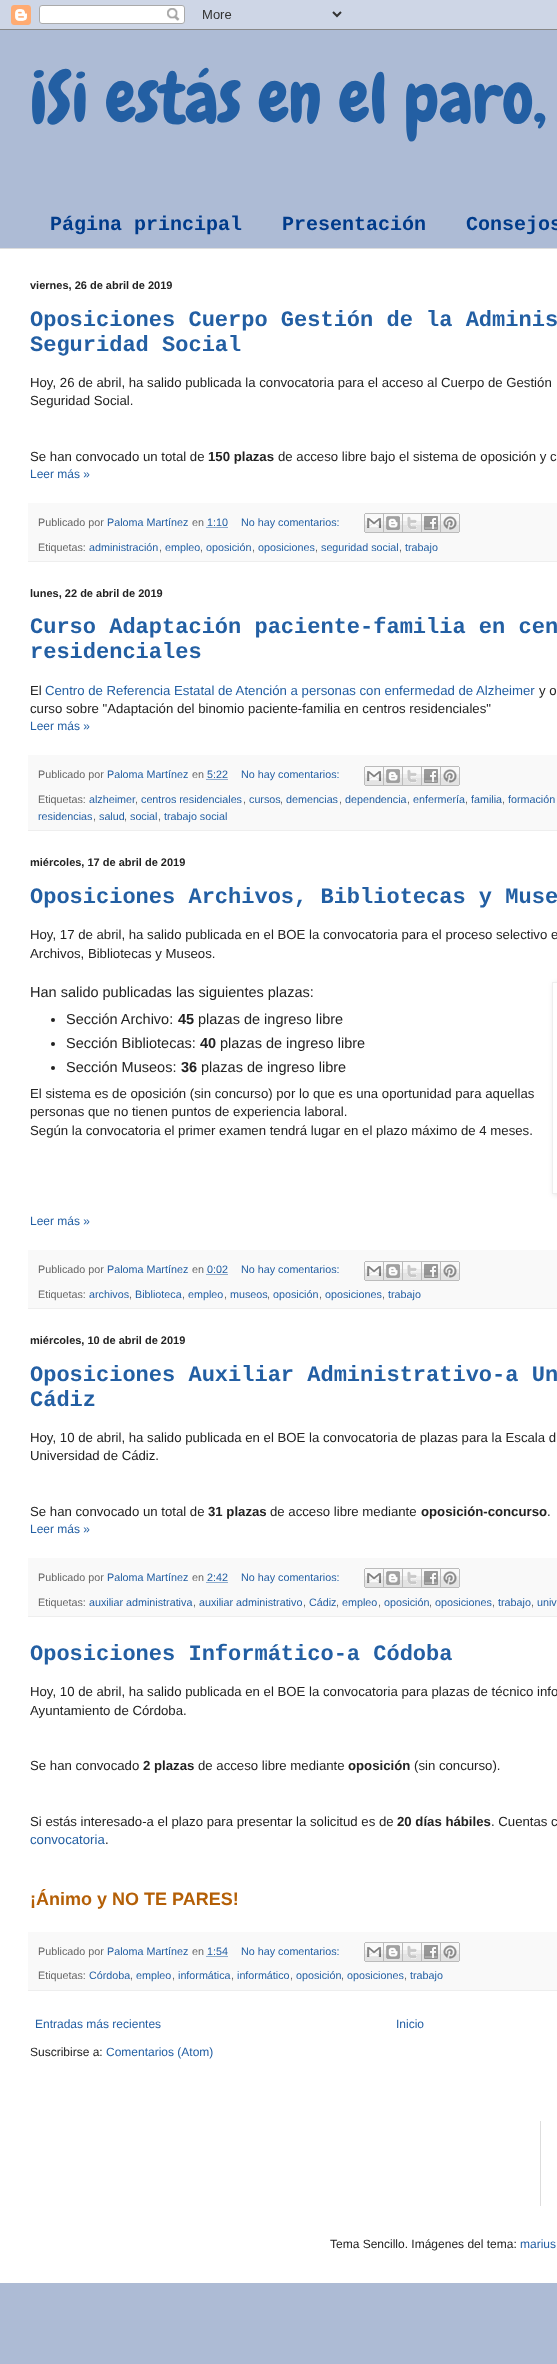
<!DOCTYPE html>
<meta charset="utf-8">
<style>body { margin: 0 } canvas { display: block }</style>
<canvas id="canvas" width="557" height="2364"></canvas>
<script type="module">
  const canvas = document.getElementById("canvas");
  const g = canvas.getContext("2d");
  g.miterLimit = 4;
  g.fontKerning = "normal";
  function drawText(s, x, y, [font, color]) {
    g.font = font;
    g.fillStyle = color;
    g.fillText(s, x, y);
  }
  function fillBox(x, y, w, h, color) {
    g.fillStyle = color;
    g.fillRect(x, y, w, h);
  }
  async function drawPicture(src, x, y, w, h) {
    const img = new Image();
    img.src = src;
    await img.decode();
    g.drawImage(img, x, y, w, h);
  }

  const s1 = ["70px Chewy", "#235FA3"];
  const s2 = ["bold 20px Liberation Mono", "#003B8B"];
  const s3 = ["bold 11px Liberation Sans", "#222222"];
  const s4 = ["bold 22px Liberation Mono", "#235FA3"];
  const s5 = ["13.2px Liberation Sans", "#222222"];
  const s6 = ["bold 13.2px Liberation Sans", "#222222"];
  const s7 = ["12px Liberation Sans", "#235FA3"];
  const s8 = ["10.75px Liberation Sans", "#666666"];
  const s9 = ["10.75px Liberation Sans", "#235FA3"];
  const s10 = ["13.2px Liberation Sans", "#235FA3"];
  const s11 = ["14.5px Liberation Sans", "#222222"];
  const s12 = ["bold 14.5px Liberation Sans", "#222222"];
  const s13 = ["bold 18px Liberation Sans", "#B45F06"];
  const s14 = ["12px Liberation Sans", "#222222"];

  fillBox(0, 0, 557, 2364, "#ADBBD5");
  await drawPicture("pic1.png", 0, 0, 557, 30);
  drawText("¡Si estás en el paro,", 30, 122, s1);
  drawText("Página principal", 50, 230, s2);
  drawText("Presentación", 282, 230, s2);
  drawText("Consejos", 466, 230, s2);
  fillBox(0, 249, 557, 1842, "#FFFFFF");
  fillBox(0, 248, 557, 1, "#DDDDDD");
  drawText("viernes, 26 de abril de 2019", 30, 289, s3);
  drawText("Oposiciones Cuerpo Gestión de la Adminis", 30, 326, s4);
  drawText("Seguridad Social", 30, 351, s4);
  drawText("Hoy, 26 de abril, ha salido publicada la convocatoria para el acceso al Cuerpo de Gestión", 30, 387, s5);
  drawText("Seguridad Social.", 30, 405, s5);
  drawText("Se han convocado un total de", 30, 461, s5);
  drawText("150 plazas", 208, 461, s6);
  drawText("de acceso libre bajo el sistema de oposición y c", 278, 461, s5);
  drawText("Leer más »", 30, 478, s7);
  fillBox(28, 503, 529, 58, "#F9F9F9");
  fillBox(28, 561, 529, 1, "#EEEEEE");
  drawText("Publicado por", 38, 526, s8);
  drawText("Paloma Martínez", 107, 526, s9);
  drawText("en", 192, 526, s8);
  drawText("1:10", 207, 526, s9);
  g.beginPath();
  g.moveTo(206.5, 527.5);
  g.lineTo(227.5, 527.5);
  g.strokeStyle = "#235FA3";
  g.setLineDash([1, 1]);
  g.stroke();
  drawText("No hay comentarios:", 241, 526, s9);
  await drawPicture("pic2.png", 364, 513, 20, 20);
  await drawPicture("pic3.png", 384, 513, 19, 20);
  await drawPicture("pic4.png", 403, 513, 19, 20);
  await drawPicture("pic5.png", 422, 513, 19, 20);
  await drawPicture("pic6.png", 441, 513, 19, 20);
  drawText("Etiquetas:", 38, 551, s8);
  drawText("administración", 89, 551, s9);
  drawText(",", 159, 551, s8);
  drawText("empleo", 165, 551, s9);
  drawText(",", 200, 551, s8);
  drawText("oposición", 206, 551, s9);
  drawText(",", 252, 551, s8);
  drawText("oposiciones", 258, 551, s9);
  drawText(",", 315, 551, s8);
  drawText("seguridad social", 321, 551, s9);
  drawText(",", 399, 551, s8);
  drawText("trabajo", 405, 551, s9);
  drawText("lunes, 22 de abril de 2019", 30, 597, s3);
  drawText("Curso Adaptación paciente-familia en cen", 30, 633, s4);
  drawText("residenciales", 30, 658, s4);
  drawText("El", 30, 695, s5);
  drawText("Centro de Referencia Estatal de Atención a personas con enfermedad de Alzheimer", 45, 695, s10);
  drawText("y o", 539, 695, s5);
  drawText("curso sobre \"Adaptación del binomio paciente-familia en centros residenciales\"", 30, 713, s5);
  drawText("Leer más »", 30, 730, s7);
  fillBox(28, 755, 529, 75, "#F9F9F9");
  fillBox(28, 830, 529, 1, "#EEEEEE");
  drawText("Publicado por", 38, 778, s8);
  drawText("Paloma Martínez", 107, 778, s9);
  drawText("en", 192, 778, s8);
  drawText("5:22", 207, 778, s9);
  g.beginPath();
  g.moveTo(206.5, 779.5);
  g.lineTo(227.5, 779.5);
  g.stroke();
  drawText("No hay comentarios:", 241, 778, s9);
  await drawPicture("pic2.png", 364, 766, 20, 20);
  await drawPicture("pic3.png", 384, 766, 19, 20);
  await drawPicture("pic4.png", 403, 766, 19, 20);
  await drawPicture("pic5.png", 422, 766, 19, 20);
  await drawPicture("pic6.png", 441, 766, 19, 20);
  drawText("Etiquetas:", 38, 803, s8);
  drawText("alzheimer", 89, 803, s9);
  drawText(",", 135, 803, s8);
  drawText("centros residenciales", 141, 803, s9);
  drawText(",", 243, 803, s8);
  drawText("cursos", 249, 803, s9);
  drawText(",", 280, 803, s8);
  drawText("demencias", 286, 803, s9);
  drawText(",", 339, 803, s8);
  drawText("dependencia", 345, 803, s9);
  drawText(",", 407, 803, s8);
  drawText("enfermería", 413, 803, s9);
  drawText(",", 465, 803, s8);
  drawText("familia", 471, 803, s9);
  drawText(",", 502, 803, s8);
  drawText("formación", 508, 803, s9);
  drawText("residencias", 38, 820, s9);
  drawText(",", 93, 820, s8);
  drawText("salud", 99, 820, s9);
  drawText(",", 124, 820, s8);
  drawText("social", 130, 820, s9);
  drawText(",", 158, 820, s8);
  drawText("trabajo social", 164, 820, s9);
  drawText("miércoles, 17 de abril de 2019", 30, 866, s3);
  drawText("Oposiciones Archivos, Bibliotecas y Muse", 30, 903, s4);
  drawText("Hoy, 17 de abril, ha salido publicada en el BOE la convocatoria para el proceso selectivo e", 30, 939, s5);
  drawText("Archivos, Bibliotecas y Museos.", 30, 958, s5);
  drawText("Han salido publicadas las siguientes plazas:", 30, 997, s11);
  g.save();
  g.beginPath();
  g.moveTo(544, 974);
  g.lineTo(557, 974);
  g.lineTo(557, 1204);
  g.lineTo(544, 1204);
  g.closePath();
  g.moveTo(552, 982);
  g.lineTo(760, 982);
  g.lineTo(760, 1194);
  g.lineTo(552, 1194);
  g.closePath();
  g.clip("evenodd");
  g.fillStyle = "rgba(0, 0, 0, 0.1)";
  g.filter = "blur(2.5px)";
  g.beginPath();
  g.rect(553, 983, 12, 212);
  g.fill();
  g.filter = "none";
  g.restore();
  g.strokeStyle = "#EEEEEE";
  g.setLineDash([]);
  g.strokeRect(552.5, 982.5, 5, 211);
  g.beginPath();
  g.arc(53, 1020, 2, 0, Math.PI * 2);
  g.fill();
  drawText("Sección Archivo:", 66, 1024, s11);
  drawText("45", 178, 1024, s12);
  drawText("plazas de ingreso libre", 198, 1024, s11);
  g.beginPath();
  g.arc(53, 1044, 2, 0, Math.PI * 2);
  g.fill();
  drawText("Sección Bibliotecas:", 66, 1048, s11);
  drawText("40", 200, 1048, s12);
  drawText("plazas de ingreso libre", 220, 1048, s11);
  g.beginPath();
  g.arc(53, 1068, 2, 0, Math.PI * 2);
  g.fill();
  drawText("Sección Museos:", 66, 1072, s11);
  drawText("36", 181, 1072, s12);
  drawText("plazas de ingreso libre", 201, 1072, s11);
  drawText("El sistema es de oposición (sin concurso) por lo que es una oportunidad para aquellas", 30, 1098, s5);
  drawText("personas que no tienen puntos de experiencia laboral.", 30, 1116, s5);
  drawText("Según la convocatoria el primer examen tendrá lugar en el plazo máximo de 4 meses.", 30, 1135, s5);
  drawText("Leer más »", 30, 1225, s7);
  fillBox(28, 1250, 529, 58, "#F9F9F9");
  fillBox(28, 1308, 529, 1, "#EEEEEE");
  drawText("Publicado por", 38, 1273, s8);
  drawText("Paloma Martínez", 107, 1273, s9);
  drawText("en", 192, 1273, s8);
  drawText("0:02", 207, 1273, s9);
  g.beginPath();
  g.moveTo(206.5, 1274.5);
  g.lineTo(227.5, 1274.5);
  g.strokeStyle = "#235FA3";
  g.setLineDash([1, 1]);
  g.stroke();
  drawText("No hay comentarios:", 241, 1273, s9);
  await drawPicture("pic2.png", 364, 1261, 20, 20);
  await drawPicture("pic3.png", 384, 1261, 19, 20);
  await drawPicture("pic4.png", 403, 1261, 19, 20);
  await drawPicture("pic5.png", 422, 1261, 19, 20);
  await drawPicture("pic6.png", 441, 1261, 19, 20);
  drawText("Etiquetas:", 38, 1298, s8);
  drawText("archivos", 89, 1298, s9);
  drawText(",", 129, 1298, s8);
  drawText("Biblioteca", 135, 1298, s9);
  drawText(",", 182, 1298, s8);
  drawText("empleo", 188, 1298, s9);
  drawText(",", 224, 1298, s8);
  drawText("museos", 230, 1298, s9);
  drawText(",", 267, 1298, s8);
  drawText("oposición", 273, 1298, s9);
  drawText(",", 319, 1298, s8);
  drawText("oposiciones", 325, 1298, s9);
  drawText(",", 382, 1298, s8);
  drawText("trabajo", 388, 1298, s9);
  drawText("miércoles, 10 de abril de 2019", 30, 1344, s3);
  drawText("Oposiciones Auxiliar Administrativo-a Un", 30, 1381, s4);
  drawText("Cádiz", 30, 1406, s4);
  drawText("Hoy, 10 de abril, ha salido publicada en el BOE la convocatoria de plazas para la Escala d", 30, 1442, s5);
  drawText("Universidad de Cádiz.", 30, 1460, s5);
  drawText("Se han convocado un total de", 30, 1516, s5);
  drawText("31 plazas", 208, 1516, s6);
  drawText("de acceso libre mediante", 270, 1516, s5);
  drawText("oposición-concurso", 421, 1516, s6);
  drawText(".", 547, 1516, s5);
  drawText("Leer más »", 30, 1533, s7);
  fillBox(28, 1558, 529, 58, "#F9F9F9");
  fillBox(28, 1616, 529, 1, "#EEEEEE");
  drawText("Publicado por", 38, 1581, s8);
  drawText("Paloma Martínez", 107, 1581, s9);
  drawText("en", 192, 1581, s8);
  g.beginPath();
  g.moveTo(206.5, 1582.5);
  g.lineTo(227.5, 1582.5);
  g.stroke();
  drawText("2:42", 207, 1581, s9);
  drawText("No hay comentarios:", 241, 1581, s9);
  await drawPicture("pic2.png", 364, 1568, 20, 20);
  await drawPicture("pic3.png", 384, 1568, 19, 20);
  await drawPicture("pic4.png", 403, 1568, 19, 20);
  await drawPicture("pic5.png", 422, 1568, 19, 20);
  await drawPicture("pic6.png", 441, 1568, 19, 20);
  drawText("Etiquetas:", 38, 1606, s8);
  drawText("auxiliar administrativa", 89, 1606, s9);
  drawText(",", 193, 1606, s8);
  drawText("auxiliar administrativo", 199, 1606, s9);
  drawText(",", 303, 1606, s8);
  drawText("Cádiz", 309, 1606, s9);
  drawText(",", 336, 1606, s8);
  drawText("empleo", 342, 1606, s9);
  drawText(",", 378, 1606, s8);
  drawText("oposición", 384, 1606, s9);
  drawText(",", 429, 1606, s8);
  drawText("oposiciones", 435, 1606, s9);
  drawText(",", 492, 1606, s8);
  drawText("trabajo", 498, 1606, s9);
  drawText(",", 531, 1606, s8);
  drawText("univ", 537, 1606, s9);
  drawText("Oposiciones Informático-a Códoba", 30, 1660, s4);
  drawText("Hoy, 10 de abril, ha salido publicada en el BOE la convocatoria para plazas de técnico info", 30, 1696, s5);
  drawText("Ayuntamiento de Córdoba.", 30, 1715, s5);
  drawText("Se han convocado", 30, 1770, s5);
  drawText("2 plazas", 143, 1770, s6);
  drawText("de acceso libre mediante", 198, 1770, s5);
  drawText("oposición", 348, 1770, s6);
  drawText("(sin concurso).", 414, 1770, s5);
  drawText("Si estás interesado-a el plazo para presentar la solicitud es de", 30, 1826, s5);
  drawText("20 días hábiles", 397, 1826, s6);
  drawText(". Cuentas c", 491, 1826, s5);
  drawText("convocatoria", 30, 1844, s10);
  drawText(".", 105, 1844, s5);
  drawText("¡Ánimo y NO TE PARES!", 30, 1905, s13);
  fillBox(28, 1932, 529, 58, "#F9F9F9");
  fillBox(28, 1990, 529, 1, "#EEEEEE");
  drawText("Publicado por", 38, 1955, s8);
  drawText("Paloma Martínez", 107, 1955, s9);
  drawText("en", 192, 1955, s8);
  drawText("1:54", 207, 1955, s9);
  g.beginPath();
  g.moveTo(206.5, 1956.5);
  g.lineTo(227.5, 1956.5);
  g.stroke();
  drawText("No hay comentarios:", 241, 1955, s9);
  await drawPicture("pic2.png", 364, 1942, 20, 20);
  await drawPicture("pic3.png", 384, 1942, 19, 20);
  await drawPicture("pic4.png", 403, 1942, 19, 20);
  await drawPicture("pic5.png", 422, 1942, 19, 20);
  await drawPicture("pic6.png", 441, 1942, 19, 20);
  drawText("Etiquetas:", 38, 1979, s8);
  drawText("Córdoba", 89, 1979, s9);
  drawText(",", 130, 1979, s8);
  drawText("empleo", 136, 1979, s9);
  drawText(",", 172, 1979, s8);
  drawText("informática", 178, 1979, s9);
  drawText(",", 231, 1979, s8);
  drawText("informático", 237, 1979, s9);
  drawText(",", 290, 1979, s8);
  drawText("oposición", 296, 1979, s9);
  drawText(",", 341, 1979, s8);
  drawText("oposiciones", 347, 1979, s9);
  drawText(",", 404, 1979, s8);
  drawText("trabajo", 410, 1979, s9);
  drawText("Entradas más recientes", 35, 2028, s7);
  drawText("Inicio", 396, 2028, s7);
  drawText("Suscribirse a:", 30, 2056, s14);
  drawText("Comentarios (Atom)", 106, 2056, s7);
  fillBox(0, 2091, 557, 192, "#FFFFFF");
  fillBox(540, 2121, 1, 85, "#DDDDDD");
  drawText("Tema Sencillo. Imágenes del tema:", 330, 2248, s14);
  drawText("marius", 520, 2248, s7);
</script>
